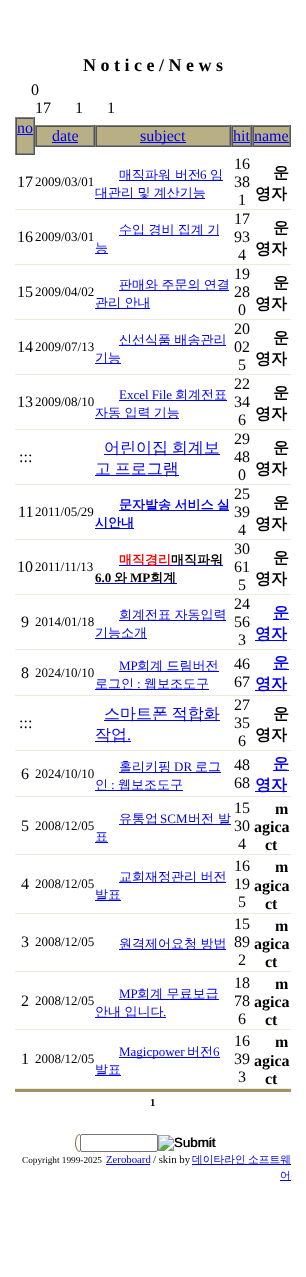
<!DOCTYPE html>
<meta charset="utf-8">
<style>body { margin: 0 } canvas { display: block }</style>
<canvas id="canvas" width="306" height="1277"></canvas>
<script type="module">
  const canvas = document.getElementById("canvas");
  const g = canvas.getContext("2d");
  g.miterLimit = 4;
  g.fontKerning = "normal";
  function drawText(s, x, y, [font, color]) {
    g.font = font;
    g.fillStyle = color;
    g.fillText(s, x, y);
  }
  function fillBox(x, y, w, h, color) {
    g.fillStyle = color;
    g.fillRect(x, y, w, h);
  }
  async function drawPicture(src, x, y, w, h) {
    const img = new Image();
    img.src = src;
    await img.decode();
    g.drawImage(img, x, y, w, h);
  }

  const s1 = ["bold 18px Liberation Serif", "#000000"];
  const s2 = ["16px Liberation Serif", "#000000"];
  const s3 = ["16px Liberation Serif", "#0000EE"];
  const s4 = ["13px Liberation Serif", "#000000"];
  const s5 = ["500 13px WenQuanYi Zen Hei", "#0000EE"];
  const s6 = ["13px Liberation Serif", "#0000EE"];
  const s7 = ["bold 16px WenQuanYi Zen Hei", "#000000"];
  const s8 = ["500 16px WenQuanYi Zen Hei", "#0000EE"];
  const s9 = ["bold 13px WenQuanYi Zen Hei", "#0000EE"];
  const s10 = ["bold 13px WenQuanYi Zen Hei", "#FF0000"];
  const s11 = ["bold 13px WenQuanYi Zen Hei", "#000000"];
  const s12 = ["bold 13px Liberation Serif", "#000000"];
  const s13 = ["bold 16px WenQuanYi Zen Hei", "#0000EE"];
  const s14 = ["bold 16px Liberation Serif", "#000000"];
  const s15 = ["13px Liberation Serif", "#0000FF"];
  const s16 = ["500 13px WenQuanYi Zen Hei", "#0000FF"];
  const s17 = ["bold 10.75px Liberation Serif", "#000000"];
  const s18 = ["13.5px Liberation Sans", "#000000"];
  const s19 = ["9.25px Liberation Serif", "#000000"];
  const s20 = ["10.75px Liberation Serif", "#0000EE"];
  const s21 = ["10.75px Liberation Serif", "#000000"];
  const s22 = ["500 10.75px WenQuanYi Zen Hei", "#0000EE"];

  fillBox(0, 0, 306, 1277, "#FFFFFF");
  drawText("N o t i c e / N e w s", 83, 71, s1);
  drawText("0", 31, 95, s2);
  drawText("17", 35, 113, s2);
  drawText("1", 75, 113, s2);
  drawText("1", 107, 113, s2);
  fillBox(17, 119, 16, 34, "#B9AF84");
  fillBox(15, 117, 20, 1, "#808080");
  fillBox(34, 117, 1, 38, "#555555");
  fillBox(15, 154, 20, 1, "#555555");
  fillBox(15, 117, 1, 38, "#808080");
  fillBox(16, 118, 18, 1, "#555555");
  fillBox(33, 118, 1, 36, "#808080");
  fillBox(16, 153, 18, 1, "#808080");
  fillBox(16, 118, 1, 36, "#555555");
  drawText("no", 17, 133, s3);
  fillBox(17, 134, 16, 1, "#0000EE");
  fillBox(37, 127, 56, 18, "#B9AF84");
  fillBox(35, 125, 256, 1, "#808080");
  fillBox(94, 125, 1, 22, "#555555");
  fillBox(35, 146, 60, 1, "#555555");
  fillBox(35, 125, 1, 22, "#808080");
  fillBox(36, 126, 58, 1, "#555555");
  fillBox(93, 126, 1, 20, "#808080");
  fillBox(36, 145, 58, 1, "#808080");
  fillBox(36, 126, 1, 20, "#555555");
  drawText("date", 52, 141, s3);
  fillBox(52, 142, 26, 1, "#0000EE");
  fillBox(97, 127, 132, 18, "#B9AF84");
  fillBox(230, 125, 1, 22, "#555555");
  fillBox(95, 146, 136, 1, "#555555");
  fillBox(95, 125, 1, 22, "#808080");
  fillBox(96, 126, 134, 1, "#555555");
  fillBox(229, 126, 1, 20, "#808080");
  fillBox(96, 145, 134, 1, "#808080");
  fillBox(96, 126, 1, 20, "#555555");
  fillBox(140, 142, 46, 1, "#0000EE");
  drawText("subject", 140, 141, s3);
  fillBox(254, 127, 35, 18, "#B9AF84");
  fillBox(290, 125, 1, 22, "#555555");
  fillBox(252, 146, 39, 1, "#555555");
  fillBox(252, 125, 1, 22, "#808080");
  fillBox(253, 126, 37, 1, "#555555");
  fillBox(289, 126, 1, 20, "#808080");
  fillBox(253, 145, 37, 1, "#808080");
  fillBox(253, 126, 1, 20, "#555555");
  fillBox(254, 142, 35, 1, "#0000EE");
  fillBox(233, 127, 17, 18, "#B9AF84");
  fillBox(251, 125, 1, 22, "#555555");
  fillBox(231, 146, 21, 1, "#555555");
  fillBox(231, 125, 1, 22, "#808080");
  fillBox(232, 126, 19, 1, "#555555");
  fillBox(250, 126, 1, 20, "#808080");
  fillBox(232, 145, 19, 1, "#808080");
  fillBox(232, 126, 1, 20, "#555555");
  drawText("hit name", 233, 141, s3);
  fillBox(233, 142, 17, 1, "#0000EE");
  drawText("17", 17, 187, s2);
  drawText("2009/03/01", 35, 186, s4);
  fillBox(119, 180, 104, 1, "#0000EE");
  drawText("매직파워 버전", 119, 179, s5);
  drawText("6", 200, 179, s6);
  drawText("임", 210, 179, s5);
  fillBox(95, 198, 110, 1, "#0000EE");
  g.wordSpacing = "-0.5px";
  drawText("대관리 및 계산기능", 95, 197, s5);
  g.wordSpacing = "0px";
  drawText("16", 234, 169, s2);
  drawText("38", 234, 187, s2);
  drawText("1", 238, 205, s2);
  drawText("운", 273, 178, s7);
  drawText("영자", 255, 199, s7);
  fillBox(15, 209, 276, 1, "#EEEBDC");
  drawText("16", 17, 242, s2);
  drawText("2009/03/01", 35, 241, s4);
  fillBox(119, 235, 100, 1, "#0000EE");
  g.wordSpacing = "-0.5px";
  drawText("수입 경비 집계 기", 119, 234, s5);
  fillBox(95, 253, 13, 1, "#0000EE");
  g.wordSpacing = "0px";
  drawText("능", 95, 252, s5);
  drawText("17", 234, 224, s2);
  drawText("93", 234, 242, s2);
  drawText("4", 238, 260, s2);
  drawText("운", 273, 233, s7);
  drawText("영자", 255, 254, s7);
  fillBox(15, 264, 276, 1, "#EEEBDC");
  drawText("15", 17, 297, s2);
  drawText("2009/04/02", 35, 296, s4);
  fillBox(119, 290, 110, 1, "#0000EE");
  g.wordSpacing = "-0.5px";
  drawText("판매와 주문의 연결", 119, 289, s5);
  fillBox(95, 308, 55, 1, "#0000EE");
  drawText("관리 안내", 95, 307, s5);
  g.wordSpacing = "0px";
  drawText("19", 234, 279, s2);
  drawText("28", 234, 297, s2);
  drawText("0", 238, 315, s2);
  drawText("운", 273, 288, s7);
  drawText("영자", 255, 309, s7);
  fillBox(15, 319, 276, 1, "#EEEBDC");
  drawText("14", 17, 352, s2);
  drawText("2009/07/13", 35, 351, s4);
  fillBox(119, 345, 107, 1, "#0000EE");
  g.wordSpacing = "-0.5px";
  drawText("신선식품 배송관리", 119, 344, s5);
  fillBox(95, 363, 26, 1, "#0000EE");
  g.wordSpacing = "0px";
  drawText("기능", 95, 362, s5);
  drawText("20", 234, 334, s2);
  drawText("02", 234, 352, s2);
  drawText("5", 238, 370, s2);
  drawText("운", 273, 343, s7);
  drawText("영자", 255, 364, s7);
  fillBox(15, 374, 276, 1, "#EEEBDC");
  drawText("13", 17, 407, s2);
  drawText("2009/08/10", 35, 406, s4);
  drawText("Excel File", 119, 399, s6);
  fillBox(119, 400, 108, 1, "#0000EE");
  drawText("회계전표", 175, 399, s5);
  fillBox(95, 418, 84, 1, "#0000EE");
  g.wordSpacing = "-0.5px";
  drawText("자동 입력 기능", 95, 417, s5);
  g.wordSpacing = "0px";
  drawText("22", 234, 389, s2);
  drawText("34", 234, 407, s2);
  drawText("6", 238, 425, s2);
  drawText("운", 273, 398, s7);
  drawText("영자", 255, 419, s7);
  fillBox(15, 429, 276, 1, "#EEEBDC");
  drawText(":::", 19, 462, s2);
  fillBox(104, 454, 116, 1, "#0000EE");
  g.wordSpacing = "-1px";
  drawText("어린이집 회계보", 104, 453, s8);
  fillBox(95, 475, 84, 1, "#0000EE");
  drawText("고 프로그램", 95, 474, s8);
  g.wordSpacing = "0px";
  drawText("29", 234, 444, s2);
  drawText("48", 234, 462, s2);
  drawText("0", 238, 480, s2);
  drawText("운", 273, 453, s7);
  drawText("영자", 255, 474, s7);
  fillBox(15, 484, 276, 1, "#EEEBDC");
  drawText("11", 18, 517, s2);
  drawText("2011/05/29", 35, 516, s4);
  fillBox(119, 510, 110, 1, "#0000EE");
  g.wordSpacing = "-0.5px";
  drawText("문자발송 서비스 실", 119, 509, s9);
  fillBox(95, 528, 39, 1, "#0000EE");
  g.wordSpacing = "0px";
  drawText("시안내", 95, 527, s9);
  drawText("25", 234, 499, s2);
  drawText("39", 234, 517, s2);
  drawText("4", 238, 535, s2);
  drawText("운", 273, 508, s7);
  drawText("영자", 255, 529, s7);
  fillBox(15, 539, 276, 1, "#EEEBDC");
  drawText("10", 17, 572, s2);
  drawText("2011/11/13", 35, 571, s4);
  fillBox(119, 565, 104, 1, "#0000EE");
  drawText("매직경리", 119, 564, s10);
  drawText("매직파워", 171, 564, s11);
  drawText("6.0", 95, 582, s12);
  fillBox(95, 583, 82, 1, "#0000EE");
  drawText("와", 114, 582, s11);
  drawText("MP", 130, 582, s12);
  drawText("회계", 150, 582, s11);
  drawText("30", 234, 554, s2);
  drawText("61", 234, 572, s2);
  drawText("5", 238, 590, s2);
  drawText("운", 273, 563, s7);
  drawText("영자", 255, 584, s7);
  fillBox(15, 594, 276, 1, "#EEEBDC");
  drawText("9", 21, 627, s2);
  drawText("2014/01/18", 35, 626, s4);
  fillBox(119, 620, 107, 1, "#0000EE");
  g.wordSpacing = "-0.5px";
  drawText("회계전표 자동입력", 119, 619, s5);
  fillBox(95, 638, 52, 1, "#0000EE");
  g.wordSpacing = "0px";
  drawText("기능소개", 95, 637, s5);
  drawText("24", 234, 609, s2);
  drawText("56", 234, 627, s2);
  drawText("3", 238, 645, s2);
  fillBox(273, 619, 16, 1, "#0000EE");
  drawText("운", 273, 618, s13);
  fillBox(255, 640, 32, 1, "#0000EE");
  drawText("영자", 255, 639, s13);
  fillBox(15, 649, 276, 1, "#EEEBDC");
  drawText("8", 21, 678, s2);
  drawText("2024/10/10", 35, 677, s4);
  drawText("MP", 119, 670, s6);
  fillBox(119, 671, 100, 1, "#0000EE");
  g.wordSpacing = "-0.5px";
  drawText("회계 드림버전", 137, 670, s5);
  fillBox(95, 689, 114, 1, "#0000EE");
  g.wordSpacing = "0px";
  drawText("로그인", 95, 688, s5);
  drawText(":", 137, 688, s6);
  drawText("웹보조도구", 144, 688, s5);
  drawText("46", 234, 669, s2);
  drawText("67", 234, 687, s2);
  fillBox(273, 669, 16, 1, "#0000EE");
  drawText("운", 273, 668, s13);
  fillBox(255, 690, 32, 1, "#0000EE");
  drawText("영자", 255, 689, s13);
  fillBox(15, 695, 276, 1, "#EEEBDC");
  drawText(":::", 19, 728, s2);
  fillBox(104, 720, 116, 1, "#0000EE");
  g.wordSpacing = "-1px";
  drawText("스마트폰 적합화", 104, 719, s8);
  fillBox(95, 741, 36, 1, "#0000EE");
  g.wordSpacing = "0px";
  drawText("작업", 95, 740, s8);
  drawText(".", 127, 740, s3);
  drawText("27", 234, 710, s2);
  drawText("35", 234, 728, s2);
  drawText("6", 238, 746, s2);
  drawText("운", 273, 719, s7);
  drawText("영자", 255, 740, s7);
  fillBox(15, 750, 276, 1, "#EEEBDC");
  drawText("6", 21, 779, s2);
  drawText("2024/10/10", 35, 778, s4);
  fillBox(119, 772, 102, 1, "#0000EE");
  drawText("홀리키핑", 119, 771, s5);
  drawText("DR", 174, 771, s6);
  drawText("로그", 195, 771, s5);
  fillBox(95, 790, 88, 1, "#0000EE");
  drawText("인", 95, 789, s5);
  drawText(":", 111, 789, s6);
  drawText("웹보조도구", 118, 789, s5);
  drawText("48", 234, 770, s2);
  drawText("68", 234, 788, s2);
  fillBox(273, 770, 16, 1, "#0000EE");
  drawText("운", 273, 769, s13);
  fillBox(255, 791, 32, 1, "#0000EE");
  drawText("영자", 255, 790, s13);
  fillBox(15, 796, 276, 1, "#EEEBDC");
  drawText("5", 21, 831, s2);
  drawText("2008/12/05", 35, 830, s4);
  fillBox(119, 824, 112, 1, "#0000EE");
  drawText("유통업", 119, 823, s5);
  drawText("SCM", 160, 823, s6);
  drawText("버전 발", 188, 823, s5);
  drawText("표", 95, 841, s5);
  fillBox(95, 842, 13, 1, "#0000EE");
  drawText("15", 234, 813, s2);
  drawText("30", 234, 831, s2);
  drawText("4", 238, 849, s2);
  drawText("m", 275, 814, s14);
  drawText("agica", 254, 832, s14);
  drawText("ct", 265, 850, s14);
  fillBox(15, 854, 276, 1, "#EEEBDC");
  drawText("4", 21, 889, s2);
  drawText("2008/12/05", 35, 888, s4);
  fillBox(119, 882, 107, 1, "#0000EE");
  g.wordSpacing = "-0.5px";
  drawText("교회재정관리 버전", 119, 881, s5);
  fillBox(95, 900, 26, 1, "#0000EE");
  g.wordSpacing = "0px";
  drawText("발표", 95, 899, s5);
  drawText("16", 234, 871, s2);
  drawText("19", 234, 889, s2);
  drawText("5", 238, 907, s2);
  drawText("m", 275, 872, s14);
  drawText("agica", 254, 891, s14);
  drawText("ct", 265, 909, s14);
  fillBox(15, 913, 276, 1, "#EEEBDC");
  drawText("3", 21, 947, s2);
  drawText("2008/12/05", 35, 946, s4);
  fillBox(119, 949, 107, 1, "#0000EE");
  g.wordSpacing = "-0.5px";
  drawText("원격제어요청 방법", 119, 948, s5);
  g.wordSpacing = "0px";
  drawText("15", 234, 929, s2);
  drawText("89", 234, 947, s2);
  drawText("2", 238, 965, s2);
  drawText("m", 275, 931, s14);
  drawText("agica", 254, 949, s14);
  drawText("ct", 265, 967, s14);
  fillBox(15, 971, 276, 1, "#EEEBDC");
  drawText("2", 21, 1006, s2);
  drawText("2008/12/05", 35, 1005, s4);
  drawText("MP", 119, 998, s6);
  fillBox(119, 999, 100, 1, "#0000EE");
  g.wordSpacing = "-0.5px";
  drawText("회계 무료보급", 137, 998, s5);
  fillBox(95, 1017, 71, 1, "#0000EE");
  drawText("안내 입니다", 95, 1016, s5);
  g.wordSpacing = "0px";
  drawText(".", 163, 1016, s6);
  drawText("18", 234, 988, s2);
  drawText("78", 234, 1006, s2);
  drawText("6", 238, 1024, s2);
  drawText("m", 275, 989, s14);
  drawText("agica", 254, 1007, s14);
  drawText("ct", 265, 1025, s14);
  fillBox(15, 1029, 276, 1, "#EEEBDC");
  drawText("1", 21, 1064, s2);
  drawText("2008/12/05", 35, 1063, s4);
  fillBox(119, 1057, 101, 1, "#0000EE");
  drawText("Magicpower", 119, 1056, s15);
  drawText("버전", 187, 1056, s16);
  drawText("6", 213, 1056, s15);
  fillBox(95, 1075, 26, 1, "#0000EE");
  drawText("발표", 95, 1074, s16);
  drawText("16", 234, 1046, s2);
  drawText("39", 234, 1064, s2);
  drawText("3", 238, 1082, s2);
  drawText("m", 275, 1047, s14);
  drawText("agica", 254, 1066, s14);
  drawText("ct", 265, 1084, s14);
  fillBox(15, 1088, 276, 1, "#EEEBDC");
  fillBox(15, 1089, 276, 3, "#A09461");
  drawText("1", 150, 1106, s17);
  await drawPicture("pic1.png", 75, 1134, 5, 18);
  g.beginPath();
  g.roundRect(80.5, 1134.5, 77, 17, 1.5);
  g.strokeStyle = "#767676";
  g.stroke();
  await drawPicture("pic2.png", 158, 1135, 57, 16);
  drawText("Submit", 174, 1147, s18);
  drawText("Copyright 1999-2025", 22, 1163, s19);
  drawText("Zeroboard", 106, 1163, s20);
  fillBox(106, 1164, 44, 1, "#0000EE");
  drawText("/ skin by", 153, 1163, s21);
  fillBox(192, 1164, 99, 1, "#0000EE");
  g.wordSpacing = "-1px";
  drawText("데이타라인 소프트웨", 192, 1163, s22);
  fillBox(280, 1180, 11, 1, "#0000EE");
  g.wordSpacing = "0px";
  drawText("어", 280, 1179, s22);
</script>
